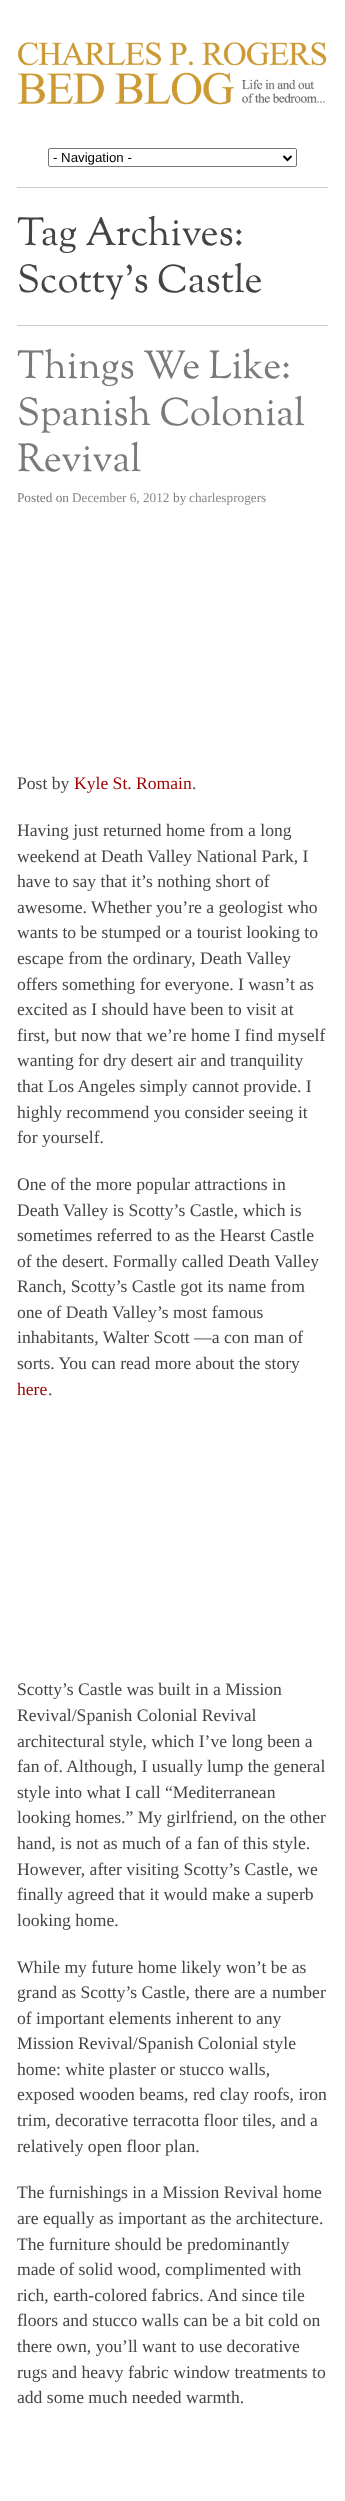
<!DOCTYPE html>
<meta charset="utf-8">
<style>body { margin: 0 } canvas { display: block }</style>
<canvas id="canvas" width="345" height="2501"></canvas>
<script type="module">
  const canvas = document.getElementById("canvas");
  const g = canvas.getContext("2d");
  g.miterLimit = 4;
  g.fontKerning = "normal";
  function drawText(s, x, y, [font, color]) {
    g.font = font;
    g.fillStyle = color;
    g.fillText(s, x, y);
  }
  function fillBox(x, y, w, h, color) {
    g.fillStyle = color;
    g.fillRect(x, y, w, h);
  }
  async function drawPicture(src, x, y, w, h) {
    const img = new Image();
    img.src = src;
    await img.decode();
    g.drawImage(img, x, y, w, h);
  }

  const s1 = ["13.25px Liberation Sans", "#000000"];
  const s2 = ["500 38.75px OFL Sorts Mill Goudy TT", "#444444"];
  const s3 = ["500 38.75px OFL Sorts Mill Goudy TT", "#7B7A79"];
  const s4 = ["13.25px Liberation Serif", "#7B7A79"];
  const s5 = ["13.25px Liberation Serif", "#888888"];
  const s6 = ["17.6px Liberation Serif", "#444444"];
  const s7 = ["17.6px Liberation Serif", "#9C0001"];

  fillBox(0, 0, 345, 2501, "#FFFFFF");
  fillBox(17, 187, 311, 1, "#CCCCCC");
  await drawPicture("pic1.png", 17, 42, 310, 63);
  g.beginPath();
  g.roundRect(48.5, 148.5, 248, 18, 1.5);
  g.strokeStyle = "#767676";
  g.stroke();
  g.beginPath();
  g.moveTo(283.5, 156);
  g.lineTo(287.5, 160);
  g.lineTo(291.5, 156);
  g.strokeStyle = "#000000";
  g.lineWidth = 2;
  g.stroke();
  drawText("- Navigation -", 53, 162, s1);
  fillBox(17, 325, 311, 1, "#CCCCCC");
  drawText("Tag Archives:", 17, 245, s2);
  drawText("Scotty’s Castle", 17, 292, s2);
  drawText("Things We Like:", 17, 378, s3);
  drawText("Spanish Colonial", 17, 425, s3);
  drawText("Revival", 17, 471, s3);
  drawText("Posted on", 17, 502, s4);
  drawText("December 6, 2012", 72, 502, s5);
  drawText("by", 173, 502, s4);
  drawText("charlesprogers", 189, 502, s5);
  drawText("Post by", 17, 789, s6);
  drawText("Kyle St. Romain", 74, 789, s7);
  drawText(".", 192, 789, s6);
  drawText("Having just returned home from a long", 17, 836, s6);
  drawText("weekend at Death Valley National Park, I", 17, 862, s6);
  drawText("have to say that it’s nothing short of", 17, 887, s6);
  drawText("awesome. Whether you’re a geologist who", 17, 913, s6);
  drawText("wants to be stumped or a tourist looking to", 17, 938, s6);
  drawText("escape from the ordinary, Death Valley", 17, 964, s6);
  drawText("offers something for everyone. I wasn’t as", 17, 990, s6);
  drawText("excited as I should have been to visit at", 17, 1015, s6);
  drawText("first, but now that we’re home I find myself", 17, 1041, s6);
  drawText("wanting for dry desert air and tranquility", 17, 1066, s6);
  drawText("that Los Angeles simply cannot provide. I", 17, 1092, s6);
  drawText("highly recommend you consider seeing it", 17, 1118, s6);
  drawText("for yourself.", 17, 1143, s6);
  drawText("One of the more popular attractions in", 17, 1190, s6);
  drawText("Death Valley is Scotty’s Castle, which is", 17, 1216, s6);
  drawText("sometimes referred to as the Hearst Castle", 17, 1241, s6);
  drawText("of the desert. Formally called Death Valley", 17, 1267, s6);
  drawText("Ranch, Scotty’s Castle got its name from", 17, 1292, s6);
  drawText("one of Death Valley’s most famous", 17, 1318, s6);
  drawText("inhabitants, Walter Scott —a con man of", 17, 1343, s6);
  drawText("sorts. You can read more about the story", 17, 1369, s6);
  drawText("here", 17, 1395, s7);
  drawText(".", 48, 1395, s6);
  drawText("Scotty’s Castle was built in a Mission", 17, 1695, s6);
  drawText("Revival/Spanish Colonial Revival", 17, 1721, s6);
  drawText("architectural style, which I’ve long been a", 17, 1747, s6);
  drawText("fan of. Although, I usually lump the general", 17, 1772, s6);
  drawText("style into what I call “Mediterranean", 17, 1798, s6);
  drawText("looking homes.” My girlfriend, on the other", 17, 1823, s6);
  drawText("hand, is not as much of a fan of this style.", 17, 1849, s6);
  drawText("However, after visiting Scotty’s Castle, we", 17, 1875, s6);
  drawText("finally agreed that it would make a superb", 17, 1900, s6);
  drawText("looking home.", 17, 1926, s6);
  drawText("While my future home likely won’t be as", 17, 1973, s6);
  drawText("grand as Scotty’s Castle, there are a number", 17, 1998, s6);
  drawText("of important elements inherent to any", 17, 2024, s6);
  drawText("Mission Revival/Spanish Colonial style", 17, 2049, s6);
  drawText("home: white plaster or stucco walls,", 17, 2075, s6);
  drawText("exposed wooden beams, red clay roofs, iron", 17, 2100, s6);
  drawText("trim, decorative terracotta floor tiles, and a", 17, 2126, s6);
  drawText("relatively open floor plan.", 17, 2152, s6);
  drawText("The furnishings in a Mission Revival home", 17, 2198, s6);
  drawText("are equally as important as the architecture.", 17, 2224, s6);
  drawText("The furniture should be predominantly", 17, 2250, s6);
  drawText("made of solid wood, complimented with", 17, 2275, s6);
  drawText("rich, earth-colored fabrics. And since tile", 17, 2301, s6);
  drawText("floors and stucco walls can be a bit cold on", 17, 2326, s6);
  drawText("there own, you’ll want to use decorative", 17, 2352, s6);
  drawText("rugs and heavy fabric window treatments to", 17, 2378, s6);
  drawText("add some much needed warmth.", 17, 2403, s6);
</script>
